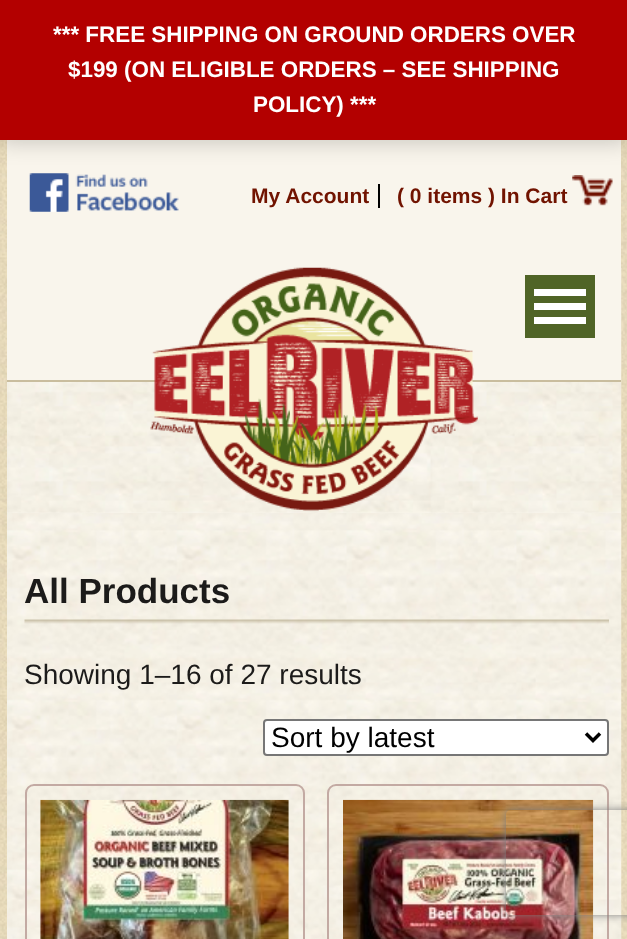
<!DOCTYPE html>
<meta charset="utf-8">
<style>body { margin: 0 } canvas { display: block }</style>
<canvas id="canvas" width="627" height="939"></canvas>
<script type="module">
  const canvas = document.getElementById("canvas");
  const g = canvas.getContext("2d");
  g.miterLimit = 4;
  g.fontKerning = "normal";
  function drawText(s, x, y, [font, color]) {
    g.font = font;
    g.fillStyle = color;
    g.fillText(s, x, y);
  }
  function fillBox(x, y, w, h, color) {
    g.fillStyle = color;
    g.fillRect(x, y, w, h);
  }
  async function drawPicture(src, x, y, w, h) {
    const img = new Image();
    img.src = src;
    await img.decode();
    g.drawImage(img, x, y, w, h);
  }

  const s1 = ["bold 22.4px Liberation Sans", "#FFFFFF"];
  const s2 = ["bold 21px Liberation Sans", "#711300"];
  const s3 = ["bold 35px Liberation Sans", "#1C1B1A"];
  const s4 = ["28px Liberation Sans", "#1C1B1A"];
  const s5 = ["28px Liberation Sans", "#000000"];

  fillBox(0, 0, 627, 939, "#FFFFFF");
  await drawPicture("pic1.png", 0, 140, 627, 799);
  fillBox(7, 140, 614, 373, "#F9F5EC");
  await drawPicture("pic2.png", 29, 173, 150, 39);
  await drawPicture("pic3.png", 572, 175, 41, 31);
  g.fillStyle = "rgba(0, 0, 0, 0.2)";
  g.filter = "blur(11px)";
  g.beginPath();
  g.rect(0, 2, 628, 140);
  g.fill();
  g.filter = "none";
  fillBox(0, 0, 627, 140, "#B30000");
  drawText("*** FREE SHIPPING ON GROUND ORDERS OVER", 53, 42, s1);
  drawText("$199 (ON ELIGIBLE ORDERS – SEE SHIPPING", 68, 77, s1);
  drawText("POLICY) ***", 253, 112, s1);
  drawText("My Account", 251, 203, s2);
  fillBox(378, 184, 2, 24, "#000000");
  drawText("( 0 items ) In Cart", 397, 203, s2);
  await drawPicture("pic4.png", 7, 268, 615, 245);
  fillBox(7, 268, 614, 112, "#F9F5EC");
  fillBox(7, 380, 614, 2, "#C9BD9E");
  await drawPicture("pic5.png", 150, 267, 328, 244);
  await drawPicture("pic6.png", 7, 513, 615, 426);
  fillBox(525, 275, 70, 63, "#506426");
  fillBox(534, 289, 52, 7, "#FFFFFF");
  fillBox(534, 303, 52, 7, "#FFFFFF");
  fillBox(534, 317, 52, 7, "#FFFFFF");
  await drawPicture("pic7.png", 24, 619, 585, 5);
  drawText("All Products", 24, 603, s3);
  drawText("Showing 1–16 of 27 results", 24, 684, s4);
  g.fillStyle = "#FFFFFF";
  g.beginPath();
  g.roundRect(264, 720, 344, 35, 3);
  g.fill();
  g.strokeStyle = "#767676";
  g.lineWidth = 2;
  g.stroke();
  g.beginPath();
  g.moveTo(586, 733.5);
  g.lineTo(593, 740.5);
  g.lineTo(600, 733.5);
  g.strokeStyle = "#000000";
  g.lineWidth = 3.5;
  g.stroke();
  drawText("Sort by latest", 271, 747, s5);
  g.beginPath();
  g.roundRect(26, 785, 278, 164, 8);
  g.strokeStyle = "#C3AAA3";
  g.lineWidth = 2;
  g.stroke();
  await drawPicture("pic8.png", 40, 799, 249, 140);
  g.beginPath();
  g.roundRect(328, 785, 280, 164, 8);
  g.stroke();
  await drawPicture("pic9.png", 343, 799, 251, 140);
  g.save();
  g.beginPath();
  g.moveTo(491, 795);
  g.lineTo(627, 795);
  g.lineTo(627, 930);
  g.lineTo(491, 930);
  g.closePath();
  g.moveTo(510, 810);
  g.lineTo(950, 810);
  g.bezierCurveTo(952, 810, 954, 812, 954, 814);
  g.lineTo(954, 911);
  g.bezierCurveTo(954, 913, 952, 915, 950, 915);
  g.lineTo(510, 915);
  g.bezierCurveTo(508, 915, 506, 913, 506, 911);
  g.lineTo(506, 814);
  g.bezierCurveTo(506, 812, 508, 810, 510, 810);
  g.closePath();
  g.clip("evenodd");
  g.fillStyle = "#808080";
  g.filter = "blur(4.5px)";
  g.beginPath();
  g.roundRect(506, 810, 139, 105, 4);
  g.fill();
  g.filter = "none";
  g.restore();
</script>
